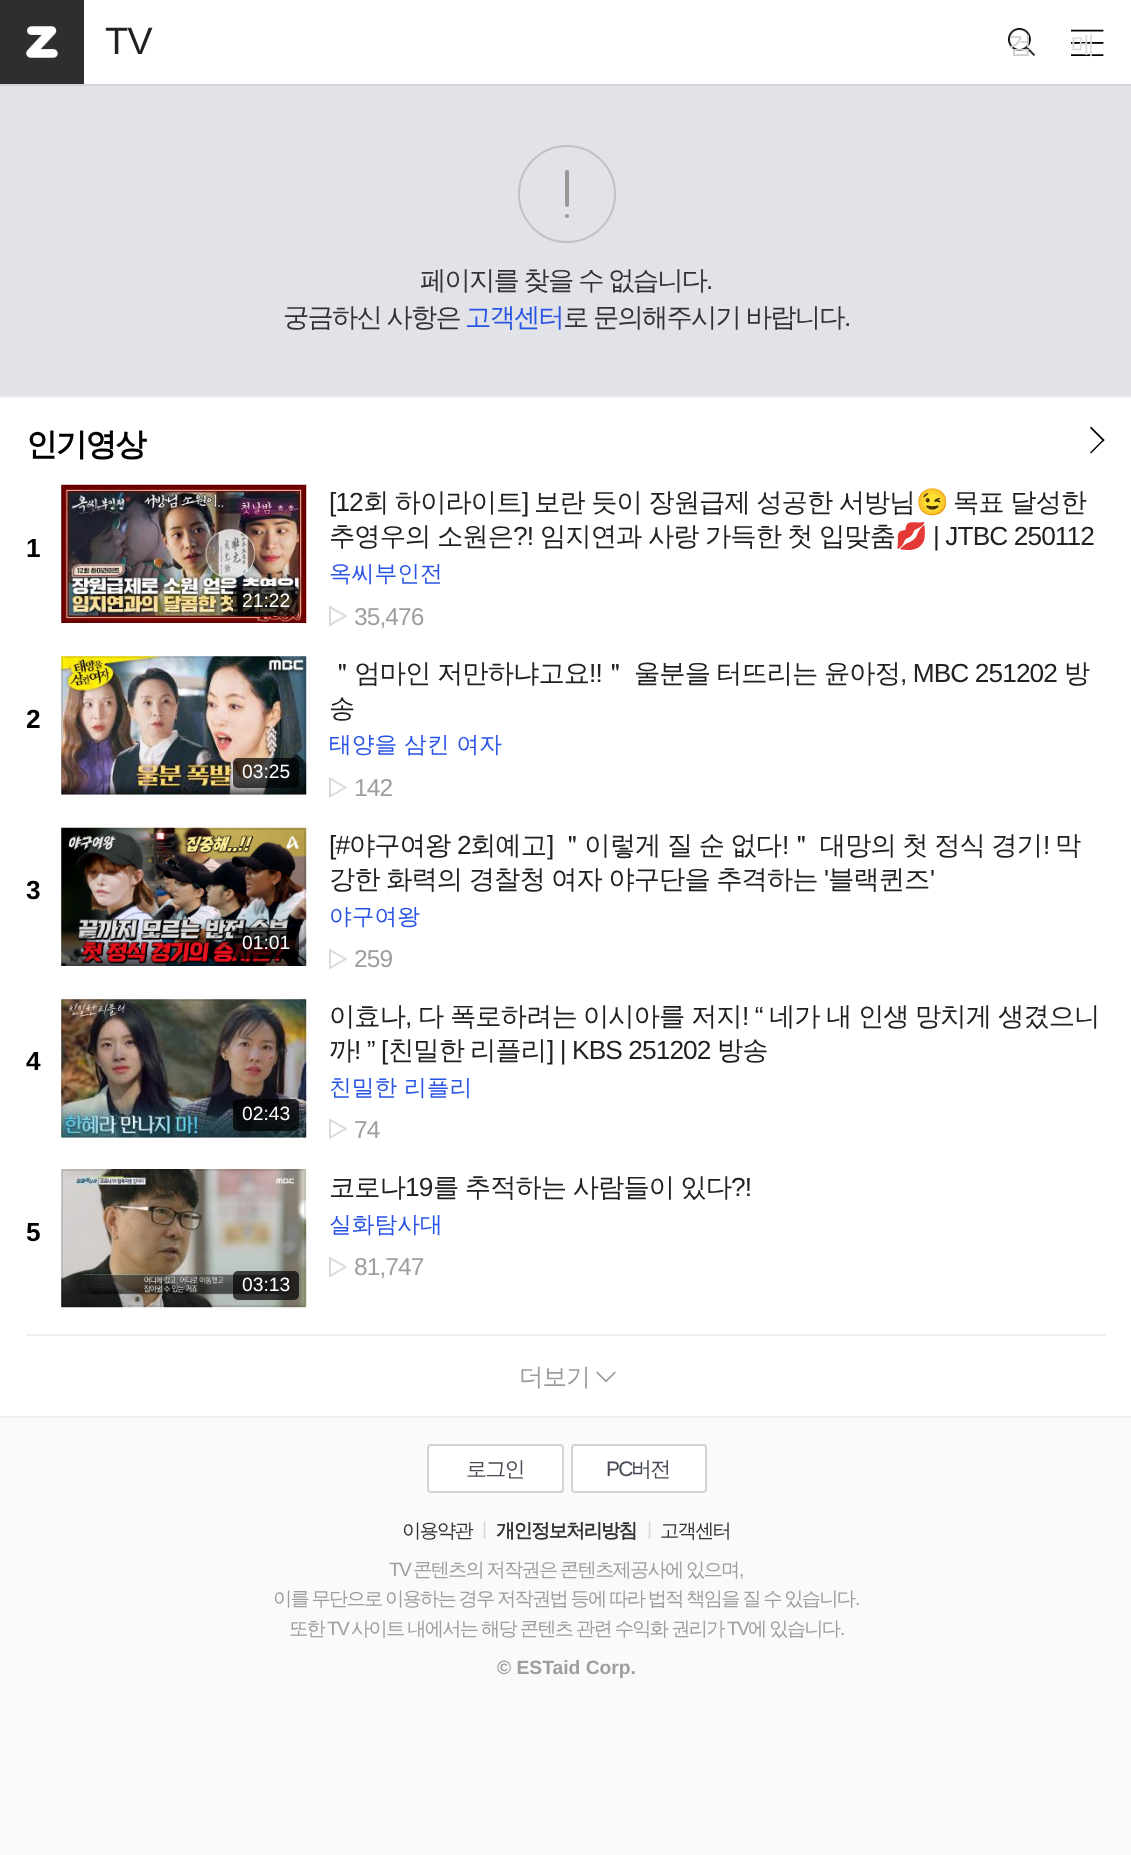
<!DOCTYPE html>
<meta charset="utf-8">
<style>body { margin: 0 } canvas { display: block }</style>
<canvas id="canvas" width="1131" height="1855"></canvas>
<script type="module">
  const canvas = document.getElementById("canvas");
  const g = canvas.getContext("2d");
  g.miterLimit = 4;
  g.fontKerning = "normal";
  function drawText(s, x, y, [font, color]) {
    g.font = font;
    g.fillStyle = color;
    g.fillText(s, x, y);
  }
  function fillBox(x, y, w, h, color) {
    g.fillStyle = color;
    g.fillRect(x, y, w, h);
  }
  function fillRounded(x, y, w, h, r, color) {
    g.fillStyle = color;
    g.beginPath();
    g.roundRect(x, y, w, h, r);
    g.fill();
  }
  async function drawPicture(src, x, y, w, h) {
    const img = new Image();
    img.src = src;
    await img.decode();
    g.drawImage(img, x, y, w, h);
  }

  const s1 = ["38px Liberation Sans", "#212121"];
  const s2 = ["500 24.5px WenQuanYi Zen Hei", "#CCCCCC"];
  const s3 = ["500 24.5px WenQuanYi Zen Hei", "#DADADA"];
  const s4 = ["500 26.25px WenQuanYi Zen Hei", "#333333"];
  const s5 = ["26.25px Liberation Sans", "#333333"];
  const s6 = ["500 26.25px WenQuanYi Zen Hei", "#2A55E4"];
  const s7 = ["bold 31.5px WenQuanYi Zen Hei", "#000000"];
  const s8 = ["bold 26.25px Liberation Sans", "#000000"];
  const s9 = ["26.25px Liberation Sans", "#212121"];
  const s10 = ["500 26.25px WenQuanYi Zen Hei", "#212121"];
  const s11 = ["26.25px Noto Color Emoji", "#212121"];
  const s12 = ["500 22.75px WenQuanYi Zen Hei", "#2A55E4"];
  const s13 = ["24.5px Liberation Sans", "#9E9E9E"];
  const s14 = ["19.25px Liberation Sans", "#FFFFFF"];
  const s15 = ["500 24.5px WenQuanYi Zen Hei", "#9E9E9E"];
  const s16 = ["500 21px WenQuanYi Zen Hei", "#464B55"];
  const s17 = ["21px Liberation Sans", "#464B55"];
  const s18 = ["500 19.25px WenQuanYi Zen Hei", "#333333"];
  const s19 = ["19.25px Liberation Sans", "#DADADA"];
  const s20 = ["bold 19.25px WenQuanYi Zen Hei", "#333333"];
  const s21 = ["19.25px Liberation Sans", "#9E9E9E"];
  const s22 = ["500 19.25px WenQuanYi Zen Hei", "#9E9E9E"];
  const s23 = ["bold 19.25px Liberation Sans", "#9E9E9E"];

  fillBox(0, 0, 1131, 1855, "#F9FAFA");
  fillBox(84, 0, 1047, 84, "#FFFFFF");
  fillBox(0, 0, 84, 84, "#2E2E2E");
  await drawPicture("pic1.png", 26, 26, 32, 32);
  g.letterSpacing = "-1px";
  drawText("TV", 105, 54, s1);
  await drawPicture("pic2.png", 1008, 28, 28, 28);
  g.save();
  g.beginPath();
  g.rect(1008, 28, 28, 28);
  g.clip();
  g.letterSpacing = "0px";
  drawText("검", 1008, 53, s2);
  g.restore();
  await drawPicture("pic3.png", 1071, 29, 33, 27);
  g.letterSpacing = "0px";
  g.wordSpacing = "-1px";
  drawText("메", 1071, 53, s3);
  fillBox(0, 84, 1131, 2, "#D2D4D8");
  fillBox(0, 86, 1131, 310, "#E1E3E8");
  g.beginPath();
  g.arc(567, 194, 48, 0, Math.PI * 2);
  g.strokeStyle = "#C2C2C2";
  g.lineWidth = 2;
  g.stroke();
  fillRounded(565, 170, 4, 37, 2, "#999999");
  g.beginPath();
  g.arc(567, 216, 2, 0, Math.PI * 2);
  g.fill();
  g.letterSpacing = "-1.75px";
  g.wordSpacing = "-0.5px";
  drawText("페이지를 찾을 수 없습니다", 420, 289, s4);
  g.wordSpacing = "0px";
  drawText(".", 706, 289, s5);
  g.wordSpacing = "-0.5px";
  drawText("궁금하신 사항은", 283, 326, s4);
  g.wordSpacing = "0px";
  drawText("고객센터", 465, 326, s6);
  g.wordSpacing = "-0.5px";
  drawText("로 문의해주시기 바랍니다", 563, 326, s4);
  g.wordSpacing = "0px";
  drawText(".", 844, 326, s5);
  fillBox(0, 398, 1131, 1018, "#FFFFFF");
  fillBox(0, 396, 1131, 2, "#EDF0F0");
  drawText("인기영상", 26, 455, s7);
  g.beginPath();
  g.moveTo(1090, 428);
  g.lineTo(1091, 426.5);
  g.lineTo(1104.5, 440);
  g.lineTo(1103.5, 441.5);
  g.closePath();
  g.fill();
  g.beginPath();
  g.moveTo(1090, 452.5);
  g.lineTo(1103.5, 439);
  g.lineTo(1104.5, 440);
  g.lineTo(1091, 453.5);
  g.closePath();
  g.fill();
  drawText("1", 26, 557, s8);
  g.letterSpacing = "-0.9px";
  drawText("[12", 329, 511, s9);
  g.wordSpacing = "-0.5px";
  drawText("회 하이라이트", 363, 511, s10);
  g.wordSpacing = "0px";
  drawText("]", 522, 511, s9);
  g.wordSpacing = "-0.5px";
  drawText("보란 듯이 장원급제 성공한 서방님", 534, 511, s10);
  g.wordSpacing = "0px";
  drawText("😉", 916, 511, s11);
  g.wordSpacing = "-0.5px";
  drawText("목표 달성한", 953, 511, s10);
  g.wordSpacing = "0px";
  drawText("추영우의", 329, 545, s10);
  drawText("소원은", 437, 545, s10);
  drawText("?!", 513, 545, s9);
  drawText("임지연과", 540, 545, s10);
  drawText("사랑", 648, 545, s10);
  drawText("가득한", 705, 545, s10);
  drawText("첫", 787, 545, s10);
  drawText("입맞춤", 819, 545, s10);
  drawText("💋", 895, 545, s11);
  drawText("| JTBC 250112", 933, 545, s9);
  g.letterSpacing = "0px";
  drawText("옥씨부인전", 329, 581, s12);
  await drawPicture("pic4.png", 329, 605, 19, 22);
  g.letterSpacing = "-0.9px";
  drawText("35,476", 354, 625, s13);
  await drawPicture("pic5.png", 61, 484, 246, 139);
  g.strokeStyle = "rgba(0, 0, 0, 0.1)";
  g.strokeRect(62, 486, 243, 136);
  fillRounded(233, 586, 66, 30, 5, "rgba(0, 0, 0, 0.7)");
  g.letterSpacing = "0px";
  drawText("21:22", 242, 607, s14);
  g.letterSpacing = "-1.75px";
  drawText("2", 26, 728, s8);
  g.letterSpacing = "-0.9px";
  drawText("＂엄마인", 329, 682, s10);
  drawText("저만하냐고요", 437, 682, s10);
  drawText("!!", 589, 682, s9);
  drawText("＂", 602, 682, s10);
  drawText("울분을", 634, 682, s10);
  drawText("터뜨리는", 716, 682, s10);
  drawText("윤아정", 824, 682, s10);
  drawText(", MBC 251202", 900, 682, s9);
  drawText("방", 1064, 682, s10);
  drawText("송", 329, 717, s10);
  g.letterSpacing = "0px";
  drawText("태양을 삼킨 여자", 329, 752, s12);
  await drawPicture("pic6.png", 329, 777, 19, 21);
  g.letterSpacing = "-0.9px";
  drawText("142", 354, 796, s13);
  await drawPicture("pic7.png", 61, 656, 246, 139);
  g.strokeRect(62, 657, 243, 137);
  fillRounded(233, 758, 66, 30, 5, "rgba(0, 0, 0, 0.7)");
  g.letterSpacing = "0px";
  drawText("03:25", 242, 778, s14);
  g.letterSpacing = "-1.75px";
  drawText("3", 26, 899, s8);
  g.letterSpacing = "-0.9px";
  drawText("[#", 329, 854, s9);
  drawText("야구여왕", 349, 854, s10);
  drawText("2", 457, 854, s9);
  drawText("회예고", 470, 854, s10);
  drawText("]", 547, 854, s9);
  g.wordSpacing = "-0.5px";
  drawText("＂이렇게 질 순 없다", 559, 854, s10);
  g.wordSpacing = "0px";
  drawText("!", 782, 854, s9);
  g.wordSpacing = "-0.5px";
  drawText("＂ 대망의 첫 정식 경기", 788, 854, s10);
  g.wordSpacing = "0px";
  drawText("!", 1043, 854, s9);
  drawText("막", 1055, 854, s10);
  g.wordSpacing = "-0.5px";
  drawText("강한 화력의 경찰청 여자 야구단을 추격하는", 329, 888, s10);
  g.wordSpacing = "0px";
  drawText("'", 824, 888, s9);
  drawText("블랙퀸즈", 828, 888, s10);
  drawText("'", 930, 888, s9);
  g.letterSpacing = "0px";
  drawText("야구여왕", 329, 924, s12);
  await drawPicture("pic4.png", 329, 948, 19, 22);
  g.letterSpacing = "-0.9px";
  drawText("259", 354, 967, s13);
  await drawPicture("pic8.png", 61, 827, 246, 139);
  g.strokeRect(62, 829, 243, 136);
  fillRounded(233, 928, 66, 31, 5, "rgba(0, 0, 0, 0.7)");
  g.letterSpacing = "0px";
  drawText("01:01", 242, 949, s14);
  g.letterSpacing = "-1.75px";
  drawText("4", 26, 1070, s8);
  g.letterSpacing = "-0.9px";
  drawText("이효나", 329, 1025, s10);
  drawText(",", 405, 1025, s9);
  drawText("다", 418, 1025, s10);
  drawText("폭로하려는", 450, 1025, s10);
  drawText("이시아를", 583, 1025, s10);
  drawText("저지", 691, 1025, s10);
  drawText("! “", 742, 1025, s9);
  drawText("네가", 769, 1025, s10);
  drawText("내", 826, 1025, s10);
  drawText("인생", 858, 1025, s10);
  drawText("망치게", 915, 1025, s10);
  drawText("생겼으니", 998, 1025, s10);
  drawText("까", 329, 1059, s10);
  drawText("! ” [", 354, 1059, s9);
  drawText("친밀한", 388, 1059, s10);
  drawText("리플리", 470, 1059, s10);
  drawText("] | KBS 251202", 547, 1059, s9);
  drawText("방송", 717, 1059, s10);
  g.letterSpacing = "0px";
  drawText("친밀한 리플리", 329, 1095, s12);
  await drawPicture("pic9.png", 329, 1118, 19, 22);
  g.letterSpacing = "-0.9px";
  drawText("74", 354, 1138, s13);
  await drawPicture("pic10.png", 61, 999, 246, 139);
  g.strokeRect(62, 1000, 243, 137);
  fillRounded(233, 1099, 66, 32, 5, "rgba(0, 0, 0, 0.7)");
  g.letterSpacing = "0px";
  drawText("02:43", 242, 1120, s14);
  g.letterSpacing = "-1.75px";
  drawText("5", 26, 1241, s8);
  g.letterSpacing = "-0.9px";
  drawText("코로나", 329, 1196, s10);
  drawText("19", 405, 1196, s9);
  g.wordSpacing = "-0.5px";
  drawText("를 추적하는 사람들이 있다", 433, 1196, s10);
  g.wordSpacing = "0px";
  drawText("?!", 731, 1196, s9);
  g.letterSpacing = "0px";
  drawText("실화탐사대", 329, 1232, s12);
  await drawPicture("pic4.png", 329, 1256, 19, 22);
  g.letterSpacing = "-0.9px";
  drawText("81,747", 354, 1275, s13);
  await drawPicture("pic11.png", 61, 1169, 246, 139);
  g.strokeRect(62, 1170, 243, 136);
  fillRounded(233, 1271, 66, 29, 5, "rgba(0, 0, 0, 0.7)");
  g.letterSpacing = "0px";
  drawText("03:13", 242, 1291, s14);
  fillBox(26, 1334, 1080, 2, "#EEF0F2");
  g.letterSpacing = "-0.9px";
  drawText("더보기", 519, 1385, s15);
  g.beginPath();
  g.moveTo(616, 1372.5);
  g.lineTo(606, 1382.5);
  g.lineTo(606, 1380);
  g.lineTo(614.5, 1371.5);
  g.closePath();
  g.moveTo(606, 1382.5);
  g.lineTo(596, 1372.5);
  g.lineTo(597.5, 1371.5);
  g.lineTo(606, 1380);
  g.closePath();
  g.fill();
  fillBox(0, 1416, 1131, 2, "#EEF0F0");
  g.fillStyle = "#FFFFFF";
  g.beginPath();
  g.roundRect(428, 1445, 135, 47, 3);
  g.fill();
  g.strokeStyle = "#D3D3D4";
  g.stroke();
  g.letterSpacing = "-1.75px";
  drawText("로그인", 466, 1476, s16);
  g.fillStyle = "#FFFFFF";
  g.beginPath();
  g.roundRect(572, 1445, 134, 47, 3);
  g.fill();
  g.stroke();
  drawText("PC", 606, 1476, s17);
  drawText("버전", 631, 1476, s16);
  drawText("이용약관", 402, 1537, s18);
  drawText("|", 482, 1535, s19);
  drawText("개인정보처리방침", 496, 1537, s20);
  drawText("|", 647, 1535, s19);
  drawText("고객센터", 660, 1537, s18);
  drawText("TV", 389, 1576, s21);
  g.wordSpacing = "-0.5px";
  drawText("콘텐츠의 저작권은 콘텐츠제공사에 있으며", 413, 1576, s22);
  g.wordSpacing = "0px";
  drawText(",", 739, 1576, s21);
  g.wordSpacing = "-0.5px";
  drawText("이를 무단으로 이용하는 경우 저작권법 등에 따라 법적 책임을 질 수 있습니다", 273, 1605, s22);
  g.wordSpacing = "0px";
  drawText(".", 855, 1605, s21);
  drawText("또한", 289, 1635, s22);
  drawText("TV", 327, 1635, s21);
  g.wordSpacing = "-0.25px";
  drawText("사이트 내에서는 해당 콘텐츠 관련 수익화 권리가", 351, 1635, s22);
  g.wordSpacing = "0px";
  drawText("TV", 727, 1635, s21);
  g.wordSpacing = "-0.25px";
  drawText("에 있습니다", 748, 1635, s22);
  g.wordSpacing = "0px";
  drawText(".", 840, 1635, s21);
  g.letterSpacing = "0px";
  drawText("© ESTaid Corp.", 497, 1674, s23);
</script>
